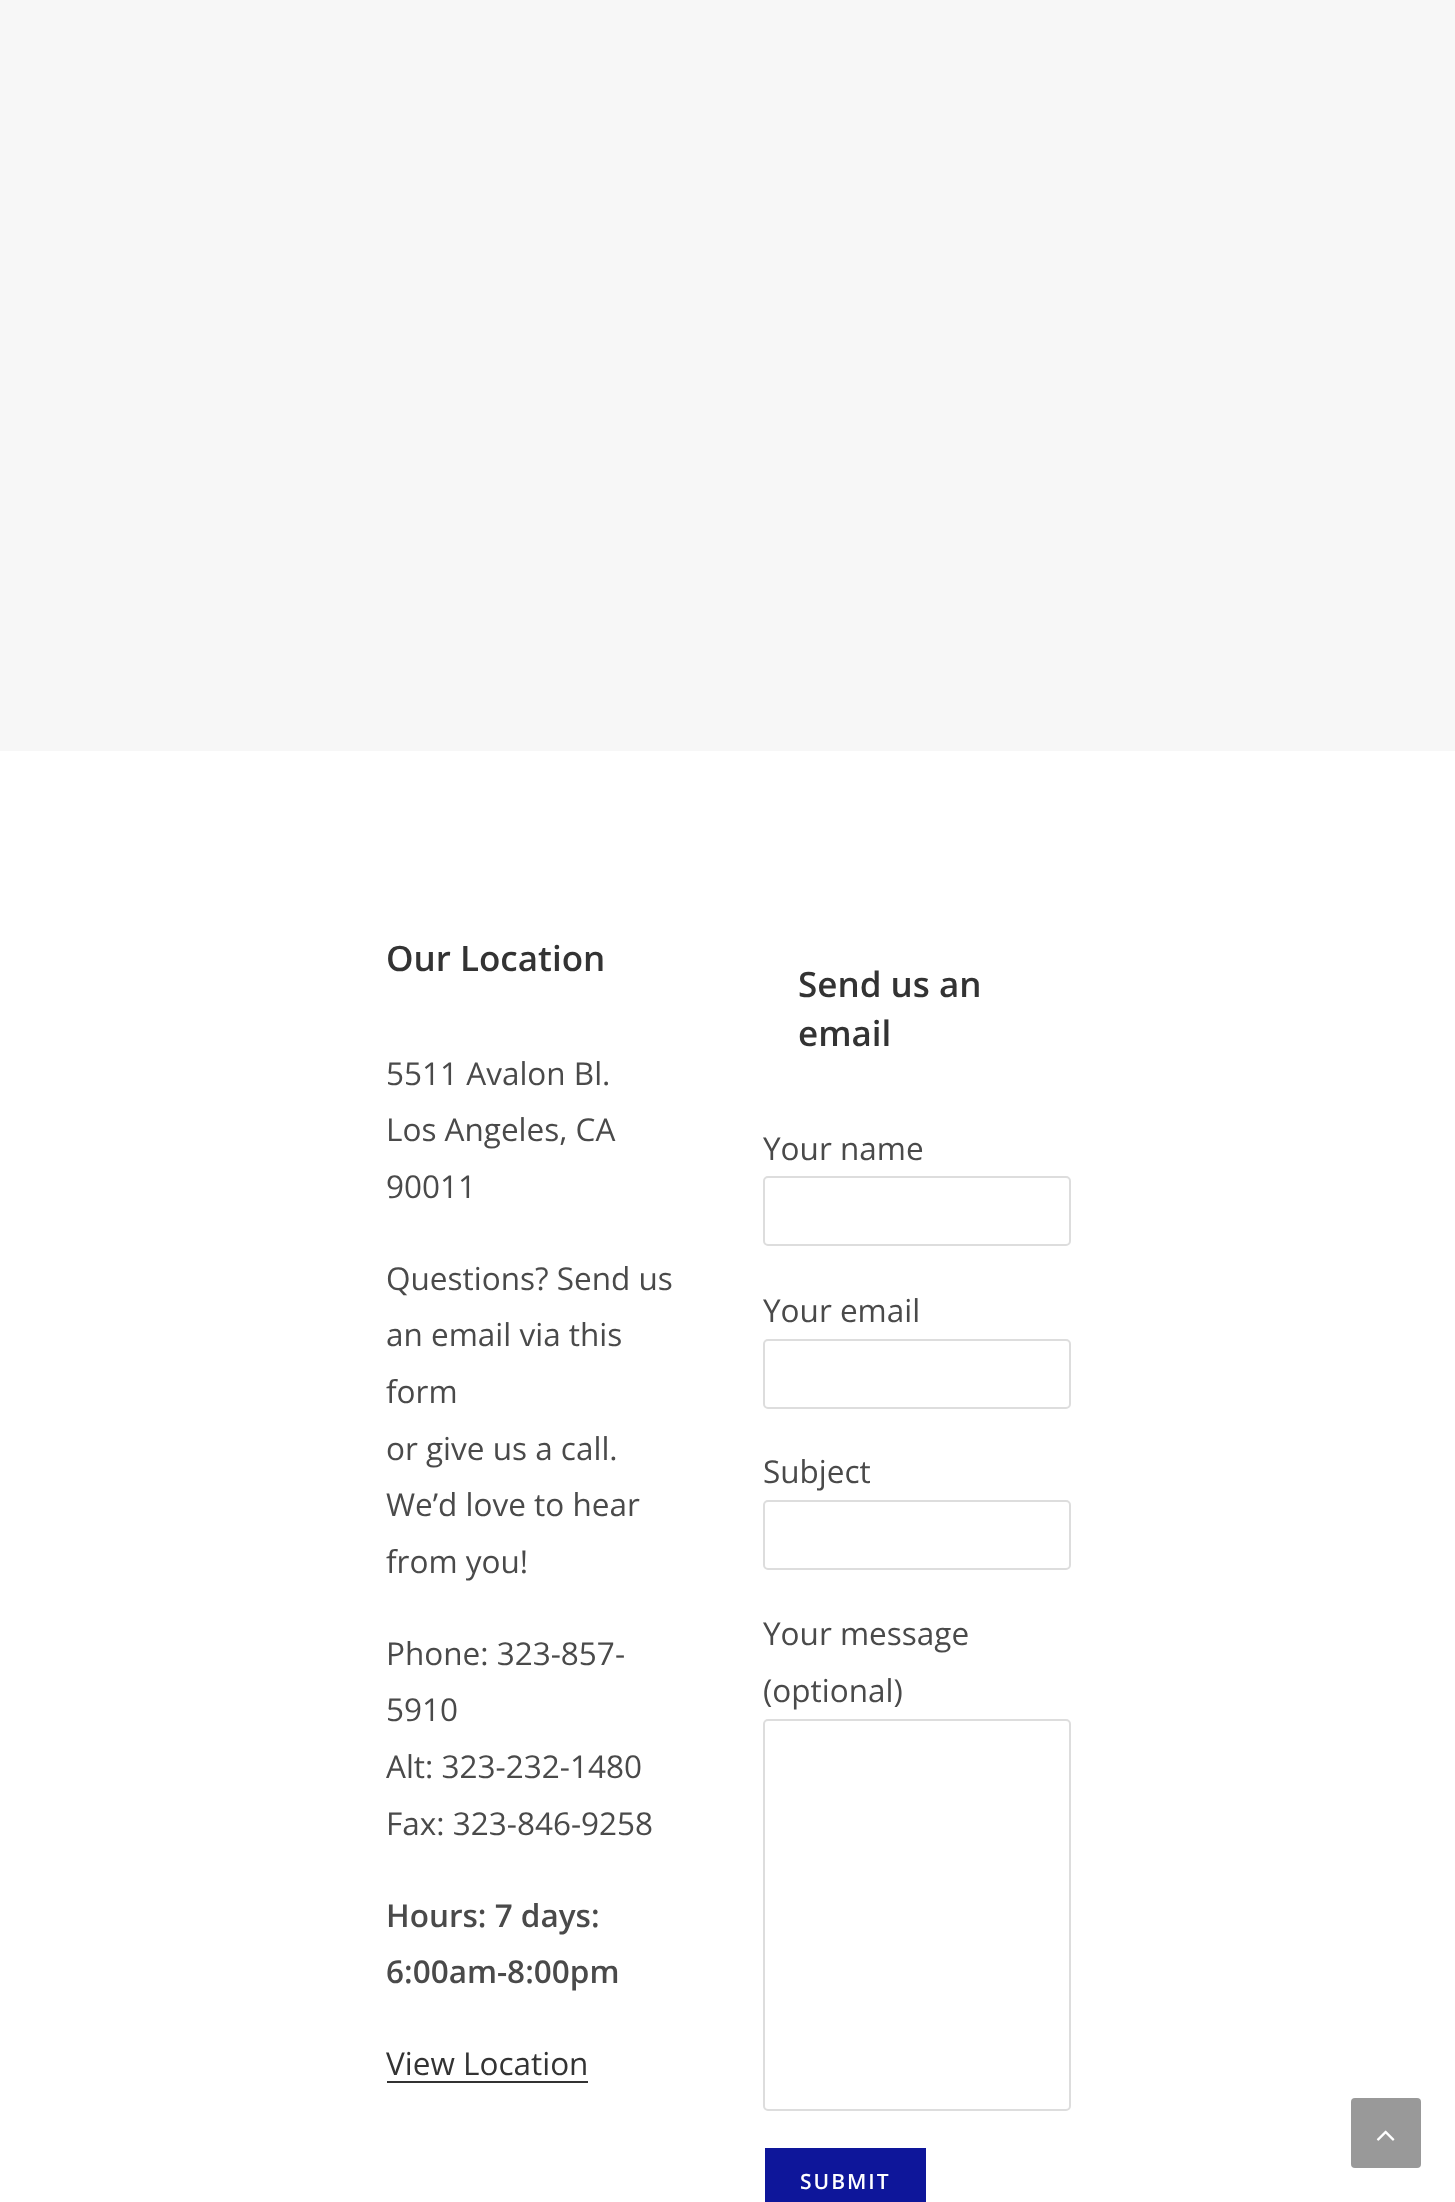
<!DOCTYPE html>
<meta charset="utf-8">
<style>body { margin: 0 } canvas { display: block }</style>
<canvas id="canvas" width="1455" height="2202"></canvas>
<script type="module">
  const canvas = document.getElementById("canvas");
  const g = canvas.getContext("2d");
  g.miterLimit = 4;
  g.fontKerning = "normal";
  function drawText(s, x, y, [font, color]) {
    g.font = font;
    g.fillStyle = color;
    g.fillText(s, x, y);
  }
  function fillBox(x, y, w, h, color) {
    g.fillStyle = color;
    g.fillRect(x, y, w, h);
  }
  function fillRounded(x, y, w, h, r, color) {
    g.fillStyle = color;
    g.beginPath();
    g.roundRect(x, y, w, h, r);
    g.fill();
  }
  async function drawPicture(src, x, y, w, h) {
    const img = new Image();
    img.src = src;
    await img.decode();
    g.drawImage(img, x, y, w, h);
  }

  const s1 = ["600 35px Open Sans", "#333333"];
  const s2 = ["31.5px Open Sans", "#4A4A4A"];
  const s3 = ["600 31.5px Open Sans", "#4A4A4A"];
  const s4 = ["31.5px Open Sans", "#333333"];
  const s5 = ["600 21px Open Sans", "#FFFFFF"];

  fillBox(0, 0, 1455, 2202, "#FFFFFF");
  fillBox(0, 0, 1455, 751, "#F7F7F7");
  drawText("Our Location", 386, 971, s1);
  drawText("5511 Avalon Bl.", 386, 1085, s2);
  drawText("Los Angeles, CA", 386, 1141, s2);
  drawText("90011", 386, 1198, s2);
  drawText("Questions? Send us", 386, 1290, s2);
  drawText("an email via this", 386, 1346, s2);
  drawText("form", 386, 1403, s2);
  drawText("or give us a call.", 386, 1460, s2);
  drawText("We’d love to hear", 386, 1516, s2);
  drawText("from you!", 386, 1573, s2);
  drawText("Phone: 323-857-", 386, 1665, s2);
  drawText("5910", 386, 1721, s2);
  drawText("Alt: 323-232-1480", 386, 1778, s2);
  drawText("Fax: 323-846-9258", 386, 1835, s2);
  drawText("Hours: 7 days:", 386, 1927, s3);
  drawText("6:00am-8:00pm", 386, 1983, s3);
  drawText("View Location", 386, 2075, s4);
  fillBox(387, 2081, 201, 2, "#333333");
  drawText("Send us an", 798, 997, s1);
  drawText("email", 798, 1046, s1);
  drawText("Your name", 763, 1160, s2);
  g.beginPath();
  g.roundRect(764, 1177, 306, 68, 4);
  g.strokeStyle = "#DDDDDD";
  g.lineWidth = 2;
  g.stroke();
  drawText("Your email", 763, 1322, s2);
  g.beginPath();
  g.roundRect(764, 1340, 306, 68, 4);
  g.stroke();
  drawText("Subject", 763, 1483, s2);
  g.beginPath();
  g.roundRect(764, 1501, 306, 68, 4);
  g.stroke();
  drawText("Your message", 763, 1645, s2);
  drawText("(optional)", 763, 1702, s2);
  g.beginPath();
  g.roundRect(764, 1720, 306, 390, 4);
  g.stroke();
  fillBox(765, 2148, 161, 54, "#0E169A");
  g.letterSpacing = "2px";
  drawText("SUBMIT", 800, 2189, s5);
  fillRounded(1351, 2098, 70, 70, 4, "#999999");
  await drawPicture("pic1.png", 1376, 2130, 19, 11);
</script>
